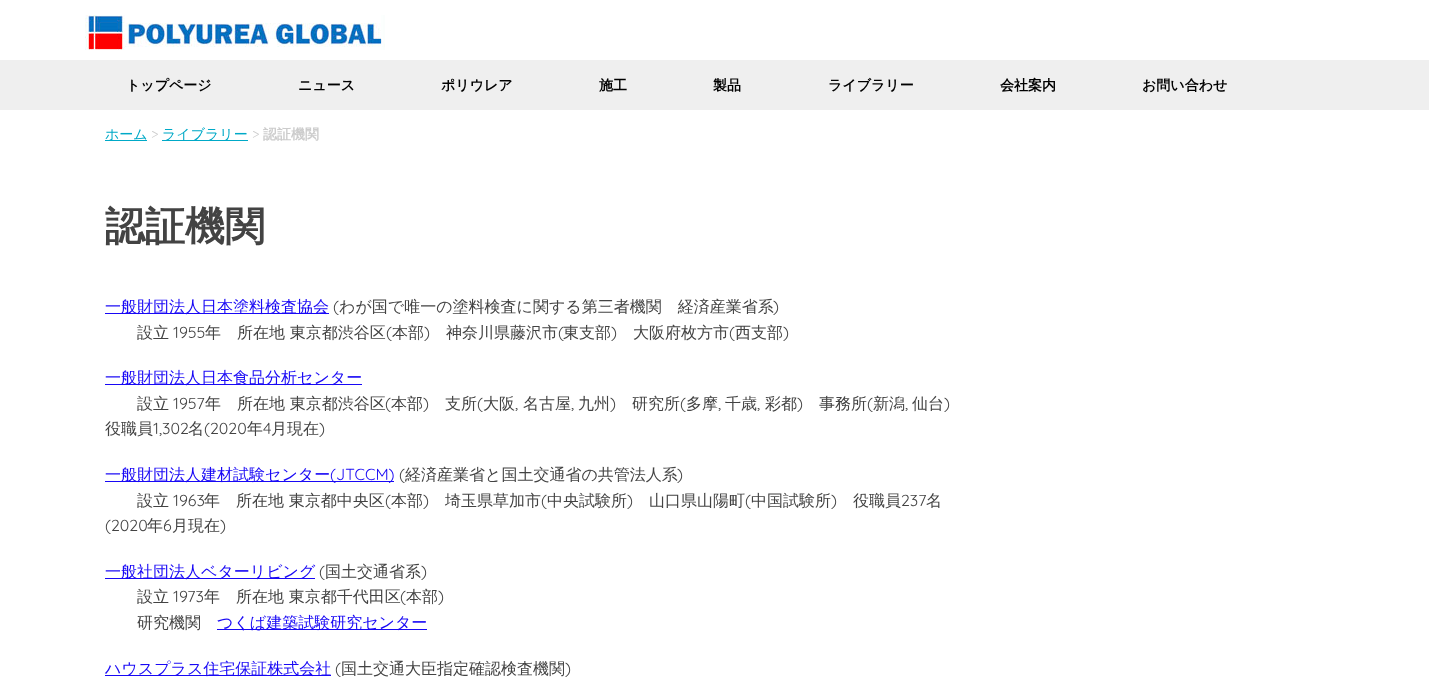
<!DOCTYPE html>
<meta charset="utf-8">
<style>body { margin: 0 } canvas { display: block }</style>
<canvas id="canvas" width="1429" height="694"></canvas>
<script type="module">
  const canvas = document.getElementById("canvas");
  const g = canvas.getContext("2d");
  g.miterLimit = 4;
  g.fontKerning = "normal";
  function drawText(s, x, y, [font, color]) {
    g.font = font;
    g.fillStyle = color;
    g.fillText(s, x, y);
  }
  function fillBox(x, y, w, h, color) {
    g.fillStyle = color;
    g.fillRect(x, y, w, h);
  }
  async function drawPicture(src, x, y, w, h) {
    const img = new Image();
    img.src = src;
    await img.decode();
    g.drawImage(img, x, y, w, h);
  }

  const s1 = ["bold 14px WenQuanYi Zen Hei", "#000000"];
  const s2 = ["500 14px WenQuanYi Zen Hei", "#00A9C7"];
  const s3 = ["14px Quicksand", "#CCCCCC"];
  const s4 = ["bold 14px WenQuanYi Zen Hei", "#CCCCCC"];
  const s5 = ["bold 40px WenQuanYi Zen Hei", "#434343"];
  const s6 = ["500 16px WenQuanYi Zen Hei", "#1808F5"];
  const s7 = ["16px Quicksand", "#434343"];
  const s8 = ["500 16px WenQuanYi Zen Hei", "#434343"];
  const s9 = ["16px Quicksand", "#1808F5"];

  fillBox(0, 0, 1429, 694, "#FFFFFF");
  await drawPicture("pic1.png", 85, 15, 300, 35);
  fillBox(0, 60, 1429, 50, "#EFEFEF");
  drawText("トップページ", 126, 90, s1);
  drawText("ニュース", 298, 90, s1);
  drawText("ポリウレア", 441, 90, s1);
  drawText("施工", 599, 90, s1);
  drawText("製品", 713, 90, s1);
  drawText("ライブラリー", 828, 90, s1);
  drawText("会社案内", 1000, 90, s1);
  drawText("お問い合わせ", 1142, 90, s1);
  fillBox(105, 140, 42, 1, "#00A9C7");
  drawText("ホーム", 105, 139, s2);
  drawText(">", 151, 139, s3);
  fillBox(162, 140, 86, 1, "#00A9C7");
  drawText("ライブラリー", 162, 139, s2);
  drawText(">", 252, 139, s3);
  drawText("認証機関", 263, 139, s4);
  drawText("認証機関", 105, 240, s5);
  fillBox(105, 313, 224, 1, "#1808F5");
  drawText("一般財団法人日本塗料検査協会", 105, 312, s6);
  drawText("(", 333, 312, s7);
  drawText("わが国で唯一の塗料検査に関する第三者機関　経済産業省系", 339, 312, s8);
  drawText(")", 773, 312, s7);
  drawText("設立", 137, 338, s8);
  drawText("1955", 173, 338, s7);
  drawText("年　所在地 東京都渋谷区", 205, 338, s8);
  drawText("(", 386, 338, s7);
  drawText("本部", 392, 338, s8);
  drawText(")", 424, 338, s7);
  drawText("神奈川県藤沢市", 446, 338, s8);
  drawText("(", 558, 338, s7);
  drawText("東支部", 563, 338, s8);
  drawText(")", 611, 338, s7);
  drawText("大阪府枚方市", 633, 338, s8);
  drawText("(", 729, 338, s7);
  drawText("西支部", 735, 338, s8);
  drawText(")", 783, 338, s7);
  fillBox(105, 384, 257, 1, "#1808F5");
  drawText("一般財団法人日本食品分析センター", 105, 383, s6);
  drawText("設立", 137, 409, s8);
  drawText("1957", 173, 409, s7);
  drawText("年　所在地 東京都渋谷区", 205, 409, s8);
  drawText("(", 385, 409, s7);
  drawText("本部", 391, 409, s8);
  drawText(")", 423, 409, s7);
  drawText("支所", 445, 409, s8);
  drawText("(", 477, 409, s7);
  drawText("大阪", 483, 409, s8);
  drawText(",", 515, 409, s7);
  drawText("名古屋", 523, 409, s8);
  drawText(",", 571, 409, s7);
  drawText("九州", 578, 409, s8);
  drawText(")", 610, 409, s7);
  drawText("研究所", 632, 409, s8);
  drawText("(", 680, 409, s7);
  drawText("多摩", 686, 409, s8);
  drawText(",", 718, 409, s7);
  drawText("千歳", 725, 409, s8);
  drawText(",", 757, 409, s7);
  drawText("彩都", 765, 409, s8);
  drawText(")", 797, 409, s7);
  drawText("事務所", 819, 409, s8);
  drawText("(", 867, 409, s7);
  drawText("新潟", 873, 409, s8);
  drawText(",", 905, 409, s7);
  drawText("仙台", 912, 409, s8);
  drawText(")", 944, 409, s7);
  drawText("役職員", 105, 434, s8);
  drawText("1,302", 153, 434, s7);
  drawText("名", 188, 434, s8);
  drawText("(2020", 204, 434, s7);
  drawText("年", 247, 434, s8);
  drawText("4", 263, 434, s7);
  drawText("月現在", 271, 434, s8);
  drawText(")", 319, 434, s7);
  fillBox(105, 481, 289, 1, "#1808F5");
  drawText("一般財団法人建材試験センター", 105, 480, s6);
  drawText("(JTCCM)", 330, 480, s9);
  drawText("(", 399, 480, s7);
  drawText("経済産業省と国土交通省の共管法人系", 405, 480, s8);
  drawText(")", 677, 480, s7);
  drawText("設立", 137, 506, s8);
  drawText("1963", 173, 506, s7);
  drawText("年　所在地 東京都中央区", 204, 506, s8);
  drawText("(", 385, 506, s7);
  drawText("本部", 391, 506, s8);
  drawText(")", 423, 506, s7);
  drawText("埼玉県草加市", 445, 506, s8);
  drawText("(", 541, 506, s7);
  drawText("中央試験所", 547, 506, s8);
  drawText(")", 627, 506, s7);
  drawText("山口県山陽町", 649, 506, s8);
  drawText("(", 745, 506, s7);
  drawText("中国試験所", 751, 506, s8);
  drawText(")", 831, 506, s7);
  drawText("役職員", 853, 506, s8);
  drawText("237", 901, 506, s7);
  drawText("名", 926, 506, s8);
  drawText("(2020", 105, 531, s7);
  drawText("年", 147, 531, s8);
  drawText("6", 163, 531, s7);
  drawText("月現在", 172, 531, s8);
  drawText(")", 220, 531, s7);
  fillBox(105, 578, 210, 1, "#1808F5");
  drawText("一般社団法人ベターリビング", 105, 577, s6);
  drawText("(", 319, 577, s7);
  drawText("国土交通省系", 325, 577, s8);
  drawText(")", 421, 577, s7);
  drawText("設立", 137, 602, s8);
  drawText("1973", 173, 602, s7);
  drawText("年　所在地 東京都千代田区", 204, 602, s8);
  drawText("(", 400, 602, s7);
  drawText("本部", 406, 602, s8);
  drawText(")", 438, 602, s7);
  drawText("研究機関", 137, 628, s8);
  fillBox(217, 629, 210, 1, "#1808F5");
  drawText("つくば建築試験研究センター", 217, 628, s6);
  fillBox(105, 675, 226, 1, "#1808F5");
  drawText("ハウスプラス住宅保証株式会社", 105, 674, s6);
  drawText("(", 335, 674, s7);
  drawText("国土交通大臣指定確認検査機関", 341, 674, s8);
  drawText(")", 565, 674, s7);
</script>
